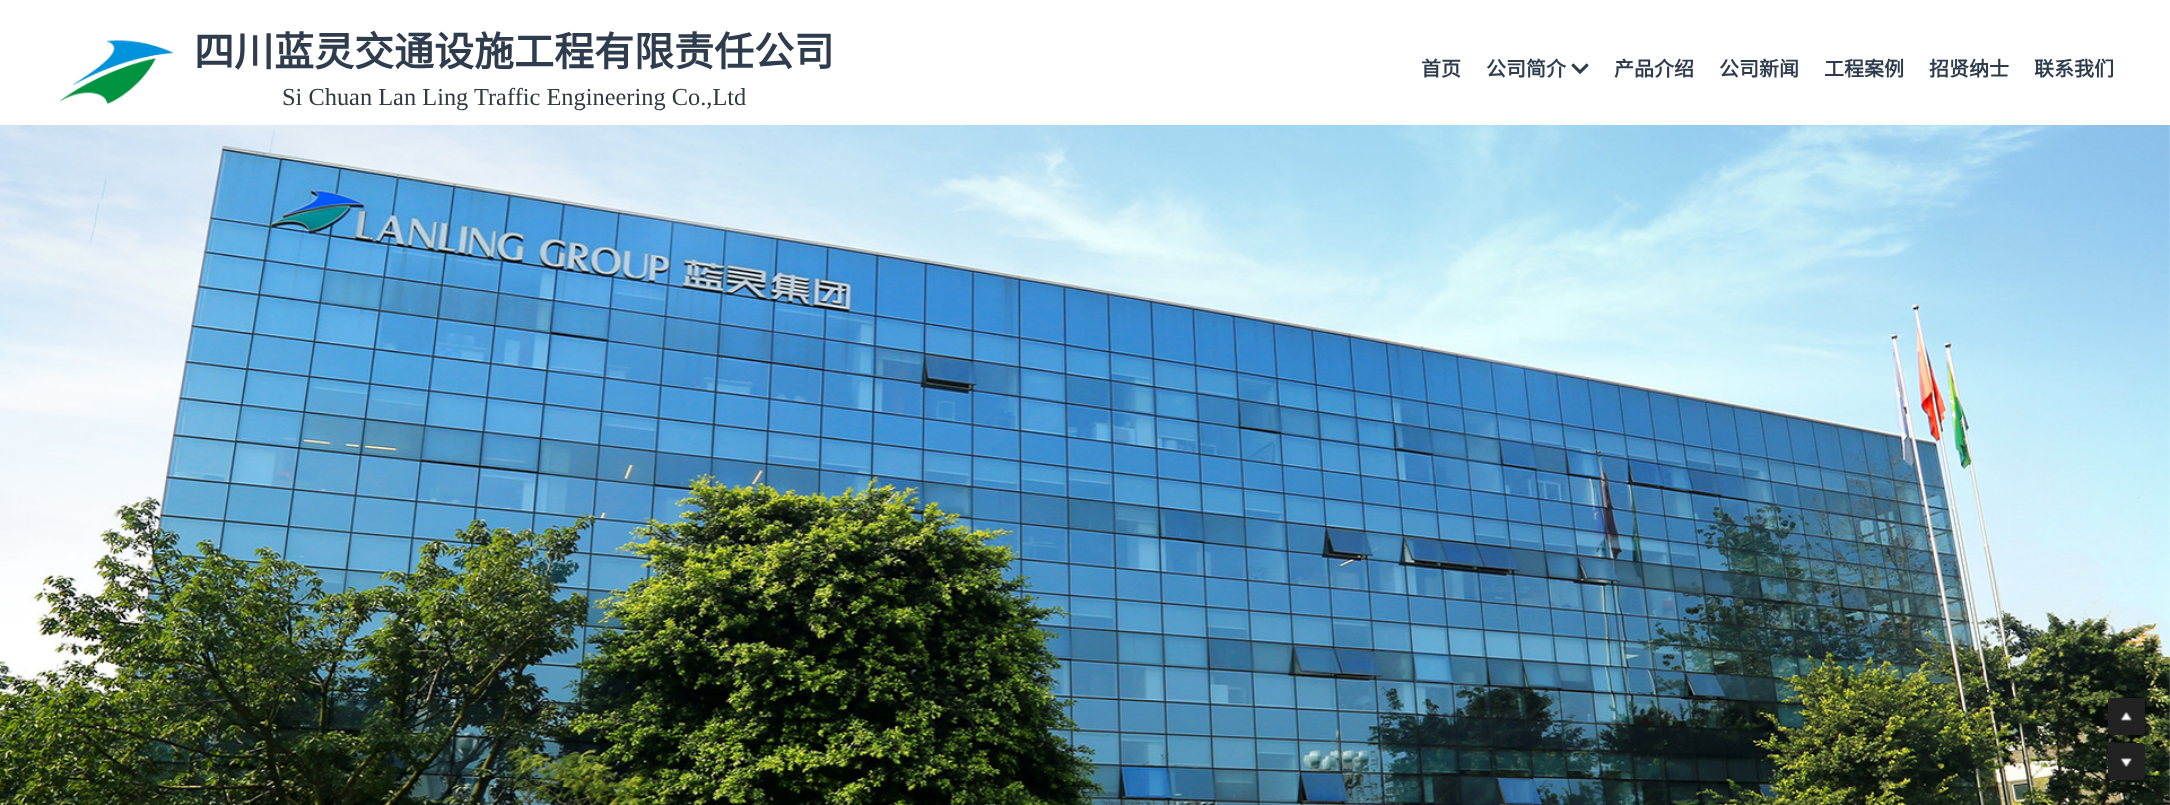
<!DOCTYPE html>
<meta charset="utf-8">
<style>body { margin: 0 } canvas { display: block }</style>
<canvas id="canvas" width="2170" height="805"></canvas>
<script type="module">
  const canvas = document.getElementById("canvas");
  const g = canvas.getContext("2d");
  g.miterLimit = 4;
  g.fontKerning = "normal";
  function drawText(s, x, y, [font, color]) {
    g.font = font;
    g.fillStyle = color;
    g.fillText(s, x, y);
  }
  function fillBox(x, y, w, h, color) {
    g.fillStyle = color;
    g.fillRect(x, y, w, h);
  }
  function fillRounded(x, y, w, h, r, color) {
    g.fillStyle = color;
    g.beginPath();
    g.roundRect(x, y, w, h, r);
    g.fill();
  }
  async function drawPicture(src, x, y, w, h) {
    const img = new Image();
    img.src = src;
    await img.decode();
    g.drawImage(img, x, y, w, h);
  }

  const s1 = ["bold 40px Noto Sans CJK SC", "#2F3C4D"];
  const s2 = ["24.4px Liberation Serif", "#323940"];
  const s3 = ["bold 20px Noto Sans CJK SC", "#2F3C4D"];

  fillBox(0, 0, 2170, 805, "#FFFFFF");
  await drawPicture("pic1.png", 60, 39, 113, 65);
  drawText("四川蓝灵交通设施工程有限责任公司", 194, 66, s1);
  drawText("Si Chuan Lan Ling Traffic Engineering Co.,Ltd", 282, 105, s2);
  drawText("首页", 1421, 76, s3);
  drawText("公司简介", 1486, 76, s3);
  await drawPicture("pic2.png", 1571, 63, 18, 11);
  drawText("产品介绍", 1614, 76, s3);
  drawText("公司新闻", 1719, 76, s3);
  drawText("工程案例", 1824, 76, s3);
  drawText("招贤纳士", 1929, 76, s3);
  drawText("联系我们", 2034, 76, s3);
  await drawPicture("pic3.png", 0, 125, 2170, 680);
  fillRounded(2108, 698, 37, 37, 4, "#222222");
  await drawPicture("pic4.png", 2120, 712, 12, 9);
  fillRounded(2108, 743, 37, 37, 4, "#222222");
  await drawPicture("pic5.png", 2120, 758, 12, 9);
</script>
